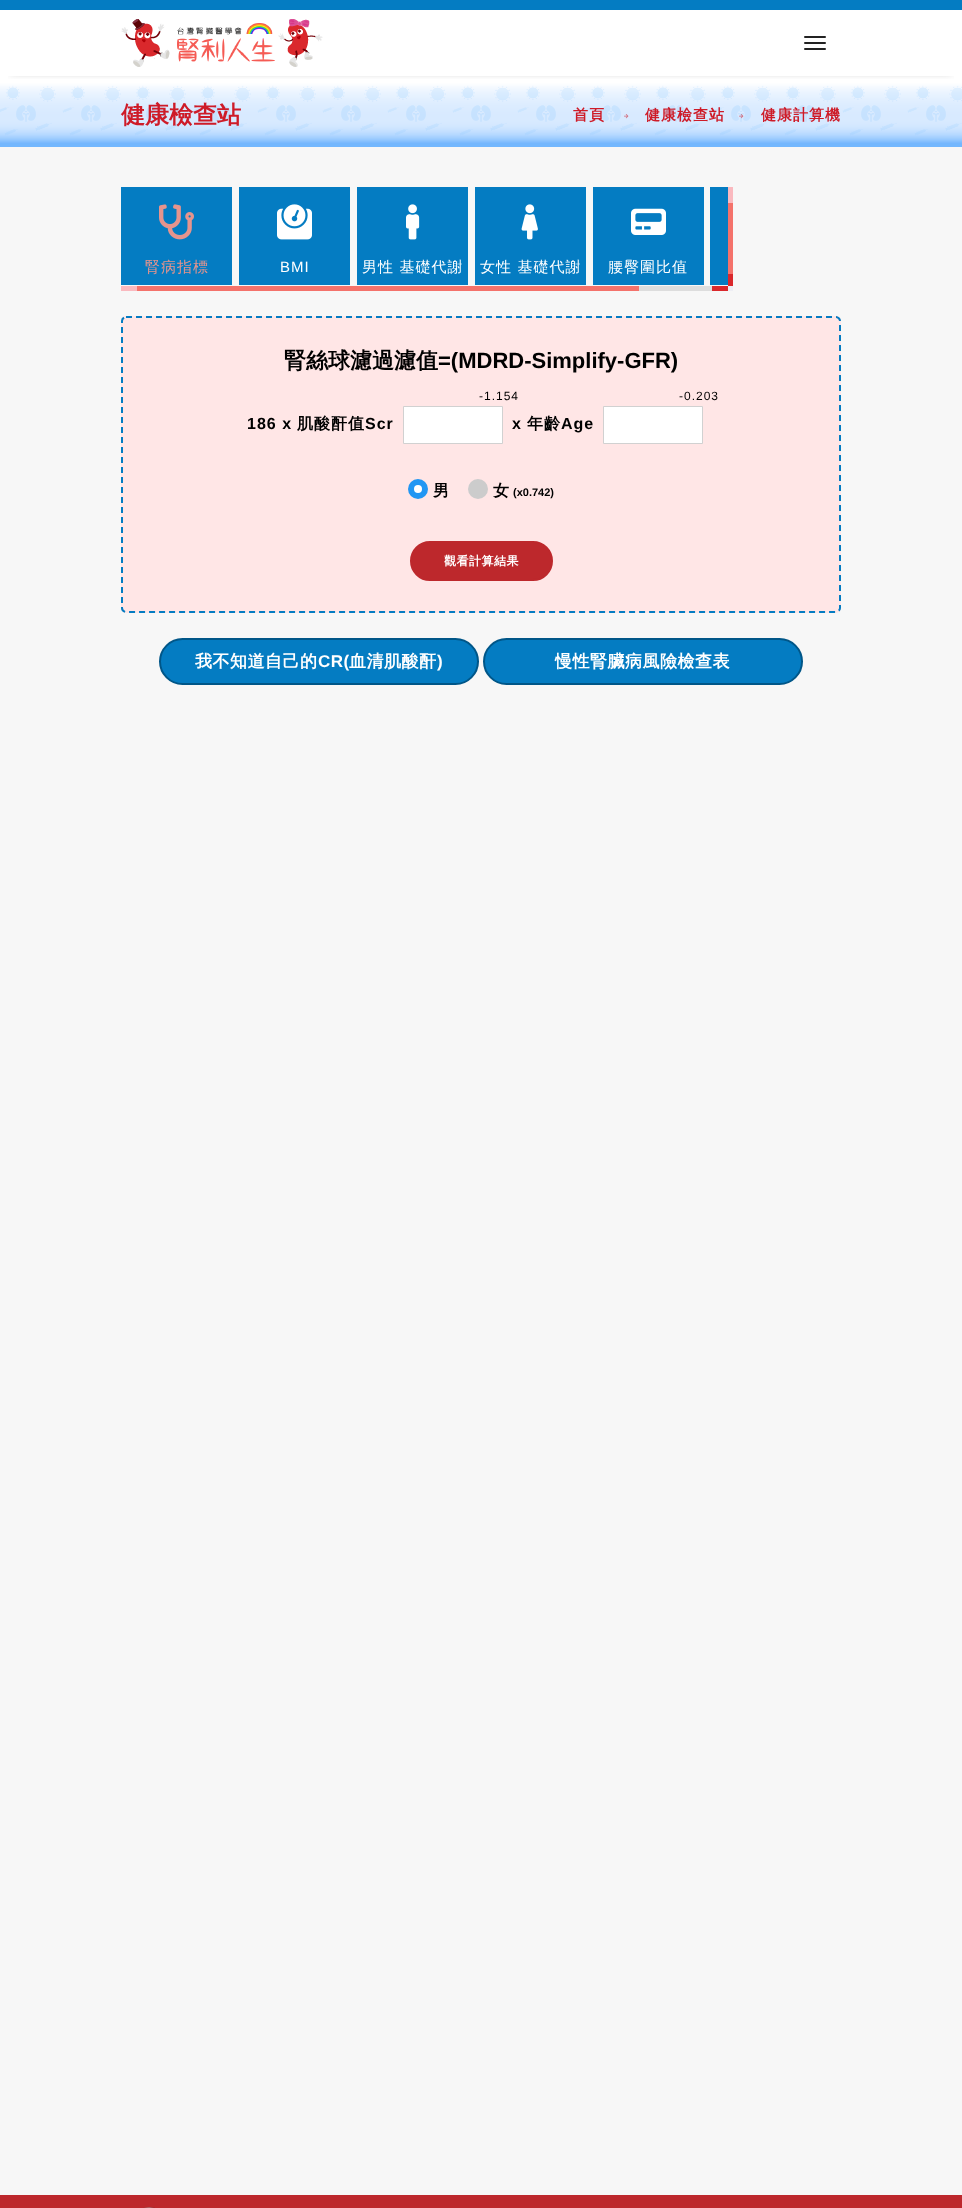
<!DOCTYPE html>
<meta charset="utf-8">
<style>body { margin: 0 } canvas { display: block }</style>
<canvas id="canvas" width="962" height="2208"></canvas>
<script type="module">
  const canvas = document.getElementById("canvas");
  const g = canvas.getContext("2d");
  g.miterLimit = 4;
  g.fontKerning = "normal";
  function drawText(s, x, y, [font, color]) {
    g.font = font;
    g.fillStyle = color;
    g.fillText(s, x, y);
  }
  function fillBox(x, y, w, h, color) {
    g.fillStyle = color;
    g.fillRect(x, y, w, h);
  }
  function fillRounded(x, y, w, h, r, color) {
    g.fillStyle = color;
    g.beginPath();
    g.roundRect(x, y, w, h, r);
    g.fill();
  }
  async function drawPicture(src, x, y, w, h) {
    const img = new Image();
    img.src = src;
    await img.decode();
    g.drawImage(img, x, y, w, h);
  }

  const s1 = ["bold 24px WenQuanYi Zen Hei", "#CE1B28"];
  const s2 = ["bold 15px WenQuanYi Zen Hei", "#CE1B28"];
  const s3 = ["500 15px WenQuanYi Zen Hei", "#E6948D"];
  const s4 = ["15px Liberation Sans", "#FFFFFF"];
  const s5 = ["500 15px WenQuanYi Zen Hei", "#FFFFFF"];
  const s6 = ["bold 22px WenQuanYi Zen Hei", "#000000"];
  const s7 = ["bold 22px Liberation Sans", "#000000"];
  const s8 = ["12px Liberation Sans", "#000000"];
  const s9 = ["bold 16px Liberation Sans", "#000000"];
  const s10 = ["bold 16px WenQuanYi Zen Hei", "#000000"];
  const s11 = ["bold 11px Liberation Sans", "#000000"];
  const s12 = ["bold 12px WenQuanYi Zen Hei", "#FFFFFF"];
  const s13 = ["bold 17px WenQuanYi Zen Hei", "#FFFFFF"];
  const s14 = ["bold 17px Liberation Sans", "#FFFFFF"];

  fillBox(0, 0, 962, 2208, "#FFFFFF");
  fillBox(0, 147, 962, 2048, "#F7F7F7");
  await drawPicture("pic2.png", 0, 82, 962, 65);
  g.save();
  g.beginPath();
  g.rect(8, 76, 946, 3);
  g.clip();
  g.fillStyle = "rgba(0, 0, 0, 0.6)";
  g.filter = "blur(5px)";
  g.beginPath();
  g.rect(10, 24, 942, 46);
  g.fill();
  g.filter = "none";
  g.restore();
  fillBox(0, 0, 962, 10, "#047CC2");
  await drawPicture("pic1.png", 121, 19, 202, 48);
  fillRounded(804, 36, 22, 2, 1, "#232323");
  fillRounded(804, 42, 22, 2, 1, "#232323");
  fillRounded(804, 48, 22, 2, 1, "#232323");
  drawText("健康檢查站", 121, 123, s1);
  g.letterSpacing = "1px";
  drawText("首頁", 573, 120, s2);
  await drawPicture("pic3.png", 624, 114, 5, 5);
  drawText("健康檢查站", 645, 120, s2);
  await drawPicture("pic4.png", 739, 114, 5, 5);
  drawText("健康計算機", 761, 120, s2);
  fillBox(121, 187, 111, 98, "#047CC2");
  await drawPicture("pic5.png", 159, 204, 35, 36);
  drawText("腎病指標", 145, 272, s3);
  fillBox(239, 187, 111, 98, "#047CC2");
  await drawPicture("pic6.png", 277, 204, 35, 36);
  drawText("BMI", 280, 272, s4);
  fillBox(357, 187, 111, 98, "#047CC2");
  await drawPicture("pic7.png", 406, 204, 14, 36);
  drawText("男性 基礎代謝", 362, 272, s5);
  fillBox(475, 187, 111, 98, "#047CC2");
  await drawPicture("pic8.png", 521, 204, 17, 36);
  drawText("女性 基礎代謝", 480, 272, s5);
  fillBox(593, 187, 111, 98, "#047CC2");
  await drawPicture("pic9.png", 631, 208, 35, 27);
  drawText("腰臀圍比值", 608, 272, s5);
  fillBox(710, 187, 18, 98, "#047CC2");
  fillBox(728, 187, 5, 16, "#FAB9BF");
  fillBox(728, 270, 5, 16, "#DA282C");
  fillBox(728, 203, 5, 71, "#F4726B");
  fillBox(121, 286, 16, 5, "#FAB9BF");
  fillBox(639, 286, 73, 5, "#DDDDDD");
  fillBox(137, 286, 502, 5, "#F4726B");
  fillBox(712, 286, 16, 5, "#DA282C");
  fillBox(728, 286, 5, 5, "#EEEEF4");
  fillRounded(121, 316, 720, 297, 5, "#FFE6E6");
  g.beginPath();
  g.moveTo(126, 317);
  g.lineTo(836, 317);
  g.bezierCurveTo(838, 317, 840, 319, 840, 321);
  g.lineTo(840, 608);
  g.bezierCurveTo(840, 610, 838, 612, 836, 612);
  g.lineTo(126, 612);
  g.bezierCurveTo(124, 612, 122, 610, 122, 608);
  g.lineTo(122, 321);
  g.bezierCurveTo(122, 319, 124, 317, 126, 317);
  g.closePath();
  g.strokeStyle = "#047CC2";
  g.lineWidth = 2;
  g.setLineDash([6, 4]);
  g.stroke();
  g.letterSpacing = "0px";
  drawText("腎絲球濾過濾值", 284, 368, s6);
  drawText("=(MDRD-Simplify-GFR)", 438, 368, s7);
  g.letterSpacing = "1px";
  drawText("-1.154", 479, 400, s8);
  g.fillStyle = "#FFFFFF";
  g.beginPath();
  g.rect(403.5, 406.5, 99, 37);
  g.fill();
  g.strokeStyle = "#D1D1D1";
  g.lineWidth = 1;
  g.setLineDash([]);
  g.stroke();
  drawText("-0.203", 679, 400, s8);
  g.fillStyle = "#FFFFFF";
  g.beginPath();
  g.rect(603.5, 406.5, 99, 37);
  g.fill();
  g.stroke();
  drawText("186 x", 247, 429, s9);
  drawText("肌酸酐值", 297, 429, s10);
  drawText("Scr", 365, 429, s9);
  drawText("x", 512, 429, s9);
  drawText("年齡", 527, 429, s10);
  drawText("Age", 561, 429, s9);
  g.fillStyle = "#2196F3";
  g.beginPath();
  g.arc(418, 489, 10, 0, Math.PI * 2);
  g.fill();
  g.fillStyle = "#FFFFFF";
  g.beginPath();
  g.arc(418, 489, 4, 0, Math.PI * 2);
  g.fill();
  g.letterSpacing = "0px";
  drawText("男", 433, 496, s10);
  g.fillStyle = "#CCCCCC";
  g.beginPath();
  g.arc(478, 489, 10, 0, Math.PI * 2);
  g.fill();
  drawText("女", 493, 496, s10);
  drawText("(x0.742)", 513, 496, s11);
  g.fillStyle = "#BD282C";
  g.beginPath();
  g.roundRect(411, 542, 141, 38, 19);
  g.fill();
  g.strokeStyle = "#BD282C";
  g.lineWidth = 2;
  g.stroke();
  g.letterSpacing = "0.5px";
  drawText("觀看計算結果", 444, 565, s12);
  g.fillStyle = "#047CC2";
  g.beginPath();
  g.roundRect(160, 639, 318, 45, 22.5);
  g.fill();
  g.strokeStyle = "#005688";
  g.stroke();
  drawText("我不知道自己的", 195, 667, s13);
  drawText("CR(", 318, 667, s14);
  drawText("血清肌酸酐", 349, 667, s13);
  drawText(")", 437, 667, s14);
  g.fillStyle = "#047CC2";
  g.beginPath();
  g.roundRect(484, 639, 318, 45, 22.5);
  g.fill();
  g.stroke();
  drawText("慢性腎臟病風險檢查表", 555, 667, s13);
  fillBox(0, 2195, 962, 13, "#BD282C");
  await drawPicture("pic10.png", 143, 2207, 12, 1);
</script>
